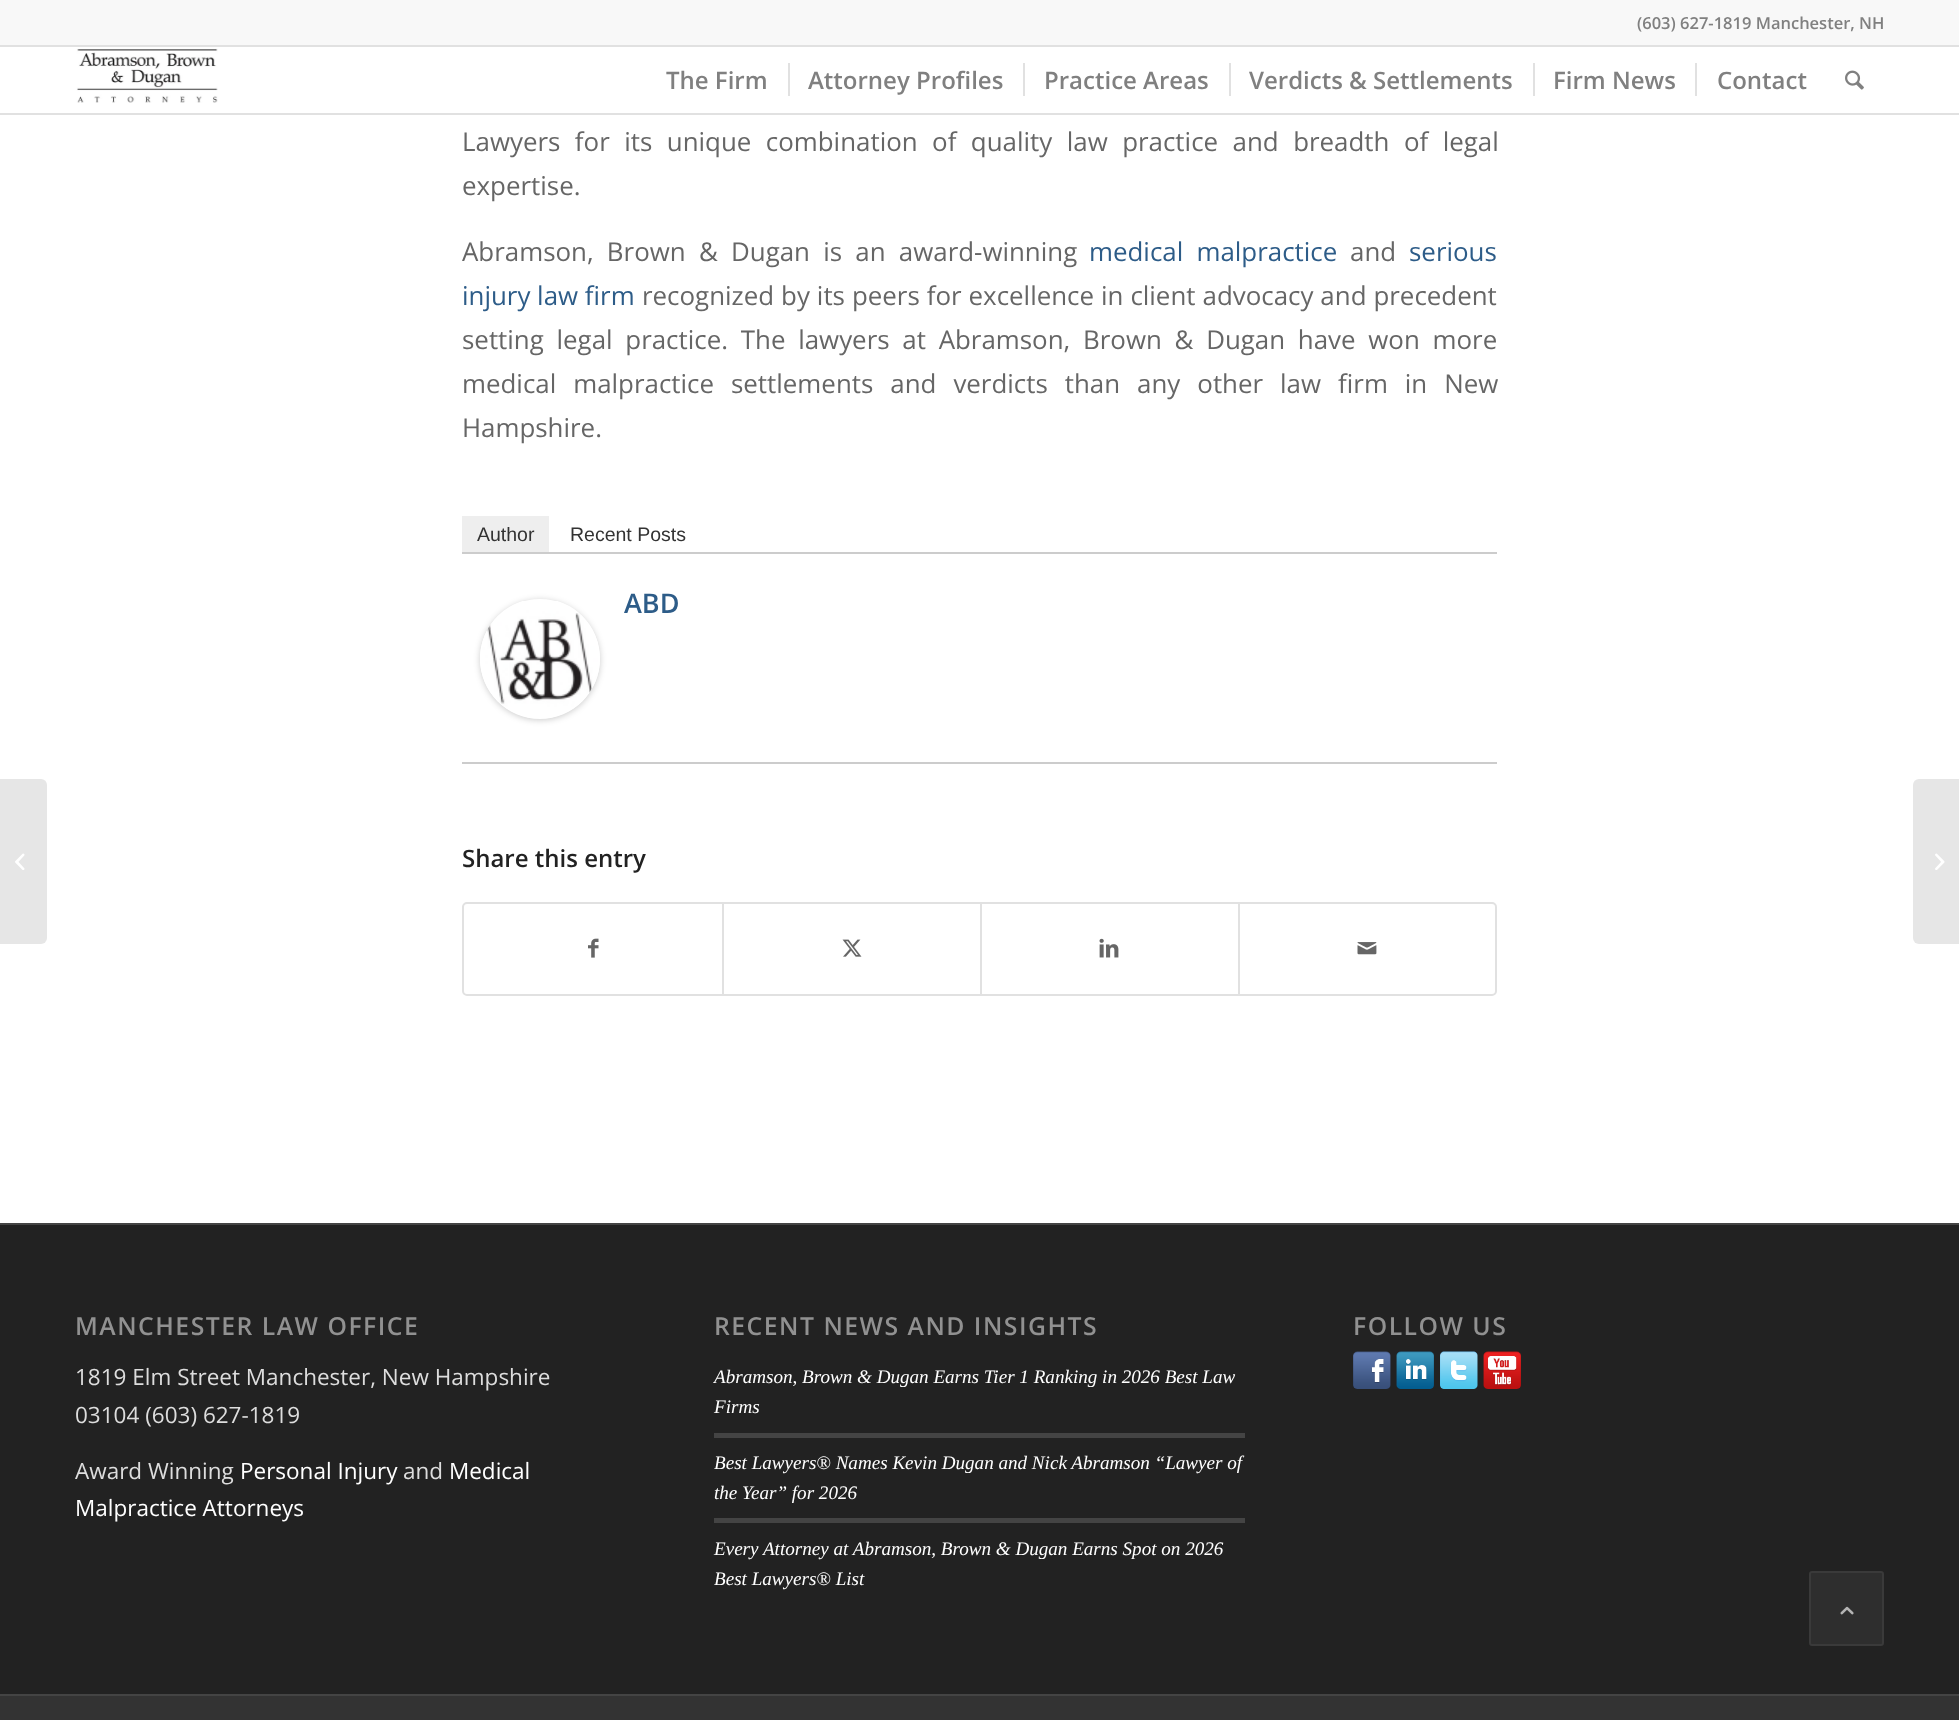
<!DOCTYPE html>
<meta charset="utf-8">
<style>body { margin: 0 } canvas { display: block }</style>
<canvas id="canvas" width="1959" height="1720"></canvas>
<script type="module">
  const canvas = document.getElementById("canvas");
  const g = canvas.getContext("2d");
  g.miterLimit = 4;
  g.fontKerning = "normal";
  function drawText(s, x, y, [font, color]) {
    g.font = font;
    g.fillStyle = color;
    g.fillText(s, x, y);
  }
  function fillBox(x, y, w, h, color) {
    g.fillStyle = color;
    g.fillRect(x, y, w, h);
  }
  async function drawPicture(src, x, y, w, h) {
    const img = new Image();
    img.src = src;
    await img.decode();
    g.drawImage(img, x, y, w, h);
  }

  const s1 = ["600 16.5px Open Sans", "#808080"];
  const s2 = ["600 24px Open Sans", "#808080"];
  const s3 = ["25.9px Open Sans", "#666666"];
  const s4 = ["25.9px Open Sans", "#2D5C88"];
  const s5 = ["19.5px Liberation Sans", "#333333"];
  const s6 = ["600 27px Open Sans", "#2D5C88"];
  const s7 = ["600 24px Open Sans", "#222222"];
  const s8 = ["600 24.75px Open Sans", "#919191"];
  const s9 = ["22.5px Open Sans", "#DDDDDD"];
  const s10 = ["22.5px Open Sans", "#FFFFFF"];
  const s11 = ["italic 19.1px Liberation Serif", "#FFFFFF"];

  fillBox(0, 0, 1959, 1720, "#FFFFFF");
  fillBox(0, 0, 1959, 45, "#F8F8F8");
  fillBox(0, 45, 1959, 2, "#E1E1E1");
  drawText("(603) 627-1819 Manchester, NH", 1637, 29, s1);
  fillBox(0, 113, 1959, 2, "#E1E1E1");
  await drawPicture("pic1.png", 75, 47, 144, 56);
  drawText("The Firm", 666, 89, s2);
  drawText("Attorney Profiles", 808, 89, s2);
  fillBox(788, 63, 2, 33, "#E1E1E1");
  drawText("Practice Areas", 1044, 89, s2);
  fillBox(1023, 63, 2, 33, "#E1E1E1");
  drawText("Verdicts & Settlements", 1249, 89, s2);
  fillBox(1229, 63, 2, 33, "#E1E1E1");
  drawText("Firm News", 1553, 89, s2);
  fillBox(1533, 63, 2, 33, "#E1E1E1");
  drawText("Contact", 1717, 89, s2);
  fillBox(1695, 63, 2, 33, "#E1E1E1");
  await drawPicture("pic2.png", 1845, 70, 19, 20);
  g.fillStyle = "#E6E6E6";
  g.beginPath();
  g.roundRect(0, 779, 47, 165, [0, 6, 6, 0]);
  g.fill();
  await drawPicture("pic3.png", 15, 853, 10, 17);
  g.wordSpacing = "7.75px";
  drawText("Lawyers for its unique combination of quality law practice and breadth of legal", 462, 151, s3);
  g.wordSpacing = "0px";
  drawText("expertise.", 462, 195, s3);
  g.wordSpacing = "6.5px";
  drawText("Abramson, Brown & Dugan is an award-winning", 462, 261, s3);
  drawText("medical malpractice", 1089, 261, s4);
  g.wordSpacing = "0px";
  drawText("and", 1350, 261, s3);
  drawText("serious", 1409, 261, s4);
  drawText("injury law firm", 462, 305, s4);
  g.wordSpacing = "0.25px";
  drawText("recognized by its peers for excellence in client advocacy and precedent", 642, 305, s3);
  g.wordSpacing = "6px";
  drawText("setting legal practice. The lawyers at Abramson, Brown & Dugan have won more", 462, 349, s3);
  g.wordSpacing = "10.25px";
  drawText("medical malpractice settlements and verdicts than any other law firm in New", 462, 393, s3);
  g.wordSpacing = "0px";
  drawText("Hampshire.", 462, 437, s3);
  fillBox(462, 552, 1035, 2, "#CCCCCC");
  fillBox(462, 516, 87, 36, "#EEEEEE");
  drawText("Author", 477, 541, s5);
  drawText("Recent Posts", 570, 541, s5);
  fillBox(462, 762, 1035, 2, "#CCCCCC");
  g.save();
  g.beginPath();
  g.moveTo(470, 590);
  g.lineTo(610, 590);
  g.lineTo(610, 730);
  g.lineTo(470, 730);
  g.closePath();
  g.moveTo(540, 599);
  g.bezierCurveTo(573, 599, 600, 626, 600, 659);
  g.bezierCurveTo(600, 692, 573, 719, 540, 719);
  g.bezierCurveTo(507, 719, 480, 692, 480, 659);
  g.bezierCurveTo(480, 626, 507, 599, 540, 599);
  g.closePath();
  g.clip("evenodd");
  g.fillStyle = "rgba(0, 0, 0, 0.2)";
  g.filter = "blur(3px)";
  g.beginPath();
  g.roundRect(480, 600, 120, 120, 60);
  g.fill();
  g.filter = "none";
  g.restore();
  await drawPicture("pic4.png", 480, 601, 120, 118);
  drawText("ABD", 624, 613, s6);
  drawText("Share this entry", 462, 867, s7);
  g.beginPath();
  g.roundRect(463, 903, 1033, 92, 4);
  g.strokeStyle = "#E1E1E1";
  g.lineWidth = 2;
  g.stroke();
  await drawPicture("pic5.png", 588, 938, 11, 20);
  fillBox(722, 903, 2, 92, "#E1E1E1");
  await drawPicture("pic6.png", 842, 939, 20, 18);
  fillBox(980, 903, 2, 92, "#E1E1E1");
  await drawPicture("pic7.png", 1099, 938, 20, 20);
  fillBox(1238, 903, 2, 92, "#E1E1E1");
  await drawPicture("pic8.png", 1357, 942, 20, 13);
  fillBox(0, 1225, 1959, 469, "#222222");
  fillBox(0, 1223, 1959, 2, "#444444");
  g.letterSpacing = "1.5px";
  drawText("MANCHESTER LAW OFFICE", 75, 1335, s8);
  g.letterSpacing = "0px";
  drawText("1819 Elm Street Manchester, New Hampshire", 75, 1385, s9);
  drawText("03104 (603) 627-1819", 75, 1423, s9);
  drawText("Award Winning", 75, 1479, s9);
  drawText("Personal Injury", 240, 1479, s10);
  drawText("and", 403, 1479, s9);
  drawText("Medical", 449, 1479, s10);
  drawText("Malpractice Attorneys", 75, 1516, s10);
  g.letterSpacing = "1.5px";
  drawText("RECENT NEWS AND INSIGHTS", 714, 1335, s8);
  g.letterSpacing = "0px";
  drawText("Abramson, Brown & Dugan Earns Tier 1 Ranking in 2026 Best Law", 714, 1383, s11);
  drawText("Firms", 714, 1413, s11);
  fillBox(714, 1433, 531, 5, "#444444");
  drawText("Best Lawyers® Names Kevin Dugan and Nick Abramson “Lawyer of", 714, 1469, s11);
  drawText("the Year” for 2026", 714, 1499, s11);
  fillBox(714, 1518, 531, 5, "#444444");
  drawText("Every Attorney at Abramson, Brown & Dugan Earns Spot on 2026", 714, 1555, s11);
  drawText("Best Lawyers® List", 714, 1585, s11);
  g.letterSpacing = "1.5px";
  drawText("FOLLOW US", 1353, 1335, s8);
  await drawPicture("pic9.png", 1353, 1351, 38, 38);
  await drawPicture("pic10.png", 1396, 1351, 38, 38);
  await drawPicture("pic11.png", 1440, 1351, 38, 38);
  await drawPicture("pic12.png", 1483, 1351, 38, 38);
  fillBox(0, 1696, 1959, 24, "#333333");
  fillBox(0, 1694, 1959, 2, "#444444");
  g.fillStyle = "#E6E6E6";
  g.beginPath();
  g.roundRect(1913, 779, 46, 165, [6, 0, 0, 6]);
  g.fill();
  await drawPicture("pic13.png", 1935, 853, 10, 17);
  g.fillStyle = "#2E2E2E";
  g.beginPath();
  g.roundRect(1810, 1572, 73, 73, 2);
  g.fill();
  g.strokeStyle = "#3A3A3A";
  g.stroke();
  await drawPicture("pic14.png", 1840, 1606, 14, 9);
</script>
